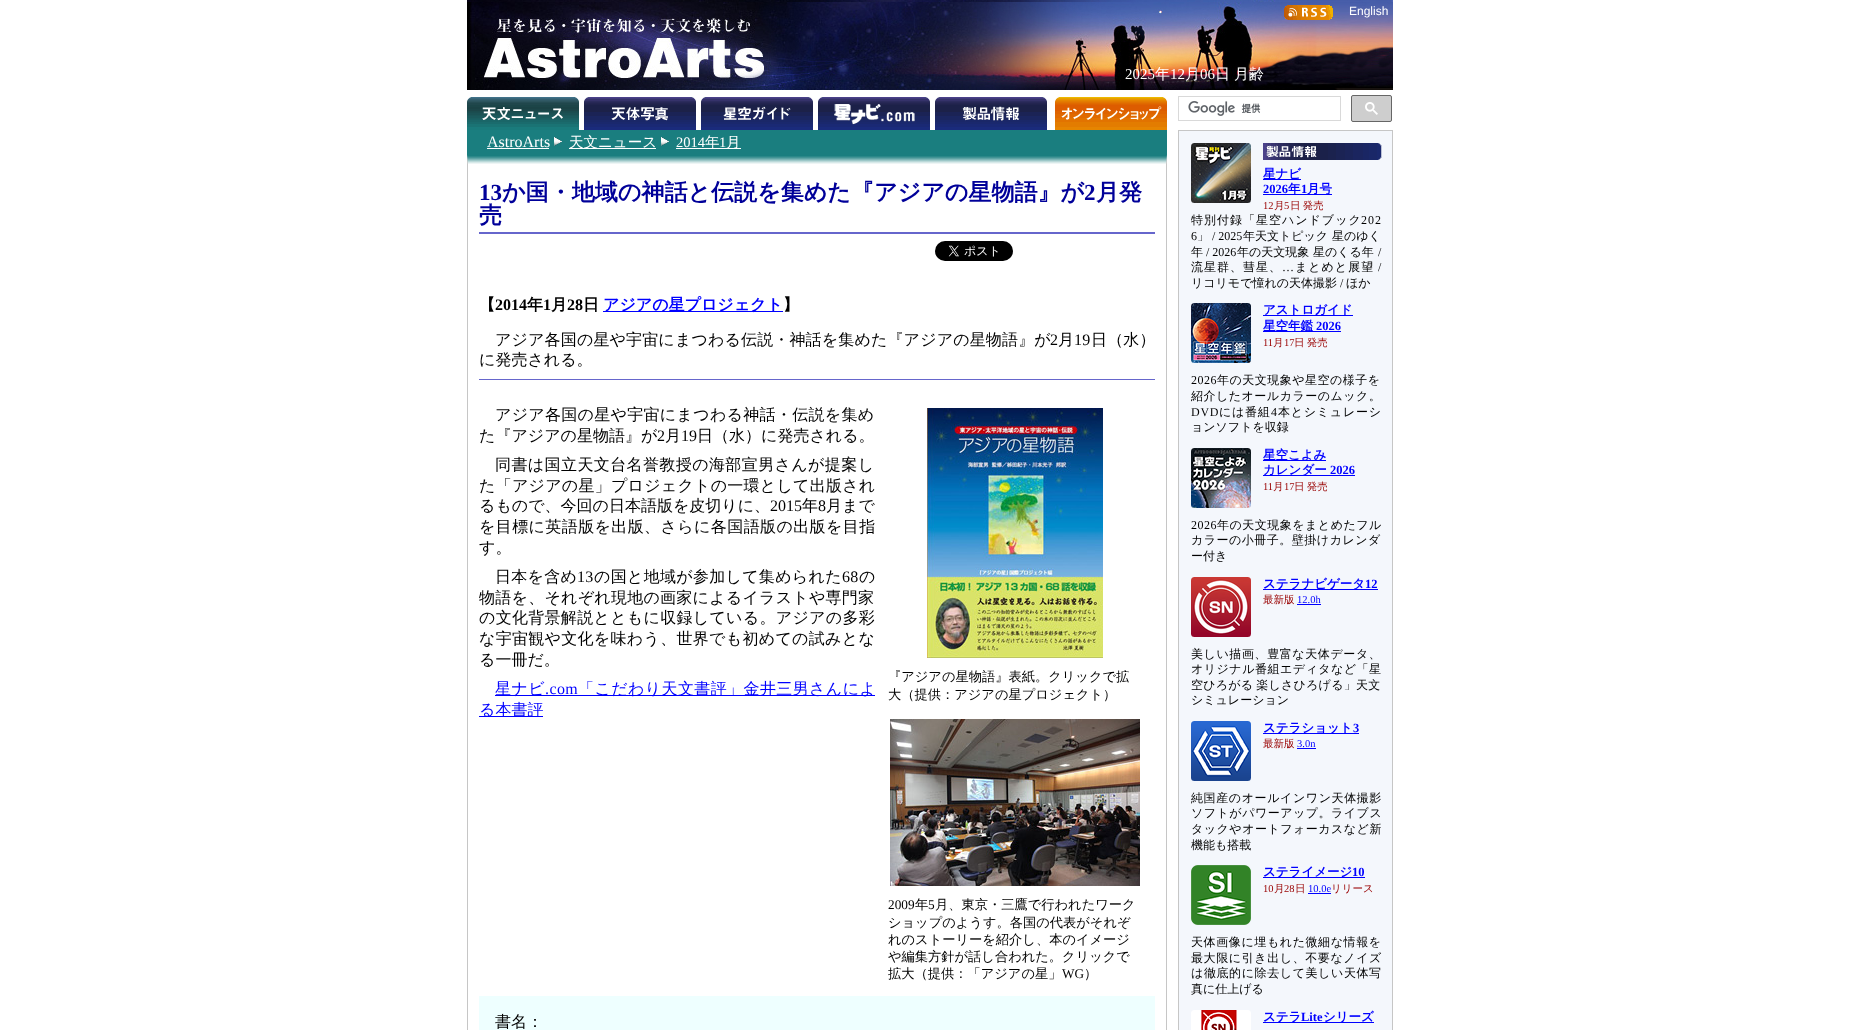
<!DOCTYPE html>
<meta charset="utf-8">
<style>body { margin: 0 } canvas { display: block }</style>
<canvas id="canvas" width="1860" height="1030"></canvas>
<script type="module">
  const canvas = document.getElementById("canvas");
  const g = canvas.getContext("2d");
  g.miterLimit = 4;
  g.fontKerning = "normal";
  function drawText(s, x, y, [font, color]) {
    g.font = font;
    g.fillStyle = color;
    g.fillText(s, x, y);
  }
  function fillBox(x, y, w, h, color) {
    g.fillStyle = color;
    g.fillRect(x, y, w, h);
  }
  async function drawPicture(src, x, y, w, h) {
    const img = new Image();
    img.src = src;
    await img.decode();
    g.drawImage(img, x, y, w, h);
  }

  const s1 = ["12px Liberation Sans", "#FFFFFF"];
  const s2 = ["15px Liberation Serif", "#FFFFFF"];
  const s3 = ["500 15px WenQuanYi Zen Hei", "#FFFFFF"];
  const s4 = ["16px Liberation Serif", "#FFFFFF"];
  const s5 = ["500 14.5px WenQuanYi Zen Hei", "#FFFFFF"];
  const s6 = ["14.5px Liberation Serif", "#FFFFFF"];
  const s7 = ["bold 23.05px Liberation Serif", "#000099"];
  const s8 = ["bold 23.05px WenQuanYi Zen Hei", "#000099"];
  const s9 = ["bold 16px WenQuanYi Zen Hei", "#000000"];
  const s10 = ["bold 16px Liberation Serif", "#000000"];
  const s11 = ["bold 16px WenQuanYi Zen Hei", "#0000FF"];
  const s12 = ["500 16px WenQuanYi Zen Hei", "#000000"];
  const s13 = ["16px Liberation Serif", "#000000"];
  const s14 = ["500 16px WenQuanYi Zen Hei", "#0000FF"];
  const s15 = ["16px Liberation Serif", "#0000FF"];
  const s16 = ["500 13.25px WenQuanYi Zen Hei", "#000000"];
  const s17 = ["13.25px Liberation Serif", "#000000"];
  const s18 = ["bold 12.5px WenQuanYi Zen Hei", "#0000FF"];
  const s19 = ["bold 12.5px Liberation Serif", "#0000FF"];
  const s20 = ["10.5px Liberation Serif", "#990000"];
  const s21 = ["500 10.5px WenQuanYi Zen Hei", "#990000"];
  const s22 = ["500 12px WenQuanYi Zen Hei", "#000000"];
  const s23 = ["12px Liberation Serif", "#000000"];
  const s24 = ["10.5px Liberation Serif", "#0000FF"];

  fillBox(0, 0, 1860, 1030, "#FFFFFF");
  await drawPicture("pic1.png", 467, 0, 926, 90);
  await drawPicture("pic2.png", 1284, 5, 49, 15);
  drawText("English", 1349, 15, s1);
  drawText("2025", 1125, 79, s2);
  drawText("年", 1155, 79, s3);
  drawText("12", 1170, 79, s2);
  drawText("月", 1185, 79, s3);
  drawText("06", 1200, 79, s2);
  drawText("日", 1215, 79, s3);
  drawText("月齢", 1234, 79, s3);
  g.strokeStyle = "#D9D9D9";
  g.strokeRect(1178.5, 96.5, 162, 24);
  await drawPicture("pic3.png", 1188, 101, 73, 15);
  g.fillStyle = "#CECECE";
  g.beginPath();
  g.roundRect(1351.5, 95.5, 40, 26, 1.5);
  g.fill();
  g.strokeStyle = "#666666";
  g.stroke();
  await drawPicture("pic4.png", 1365, 102, 13, 13);
  await drawPicture("pic5.png", 467, 97, 112, 33);
  await drawPicture("pic6.png", 584, 97, 112, 33);
  await drawPicture("pic7.png", 701, 97, 112, 33);
  await drawPicture("pic8.png", 818, 97, 112, 33);
  await drawPicture("pic9.png", 935, 97, 112, 33);
  await drawPicture("pic10.png", 1055, 97, 112, 33);
  await drawPicture("pic11.png", 467, 130, 926, 900);
  fillBox(467, 130, 700, 25, "#1A7E7F");
  await drawPicture("pic12.png", 467, 155, 700, 10);
  drawText("AstroArts", 487, 147, s4);
  fillBox(487, 148, 62, 1, "#FFFFFF");
  await drawPicture("pic13.png", 554, 137, 8, 9);
  fillBox(569, 148, 87, 1, "#FFFFFF");
  drawText("天文ニュース", 569, 147, s5);
  await drawPicture("pic13.png", 661, 137, 8, 9);
  drawText("2014", 676, 147, s6);
  fillBox(676, 148, 65, 1, "#FFFFFF");
  drawText("年", 705, 147, s5);
  drawText("1", 719, 147, s6);
  drawText("月", 726, 147, s5);
  fillBox(479, 232, 676, 2, "#6666CC");
  drawText("13", 479, 200, s7);
  drawText("か国・地域の神話と伝説を集めた『アジアの星物語』が", 502, 200, s8);
  drawText("2", 1084, 200, s7);
  drawText("月発", 1096, 200, s8);
  drawText("売", 479, 223, s8);
  await drawPicture("pic14.png", 935, 241, 78, 20);
  drawText("【", 479, 310, s9);
  drawText("2014", 495, 310, s10);
  drawText("年", 527, 310, s9);
  drawText("1", 543, 310, s10);
  drawText("月", 551, 310, s9);
  drawText("28", 567, 310, s10);
  drawText("日", 583, 310, s9);
  fillBox(603, 311, 180, 1, "#0000FF");
  drawText("アジアの星プロジェクト", 603, 310, s11);
  drawText("】", 783, 310, s9);
  g.letterSpacing = "0.15px";
  drawText("アジア各国の星や宇宙にまつわる伝説・神話を集めた『アジアの星物語』が", 495, 345, s12);
  drawText("2", 1050, 345, s13);
  drawText("月", 1058, 345, s12);
  drawText("19", 1074, 345, s13);
  drawText("日（水）", 1091, 345, s12);
  g.letterSpacing = "0px";
  drawText("に発売される。", 479, 365, s12);
  fillBox(479, 379, 676, 1, "#6666CC");
  g.letterSpacing = "0.3px";
  drawText("アジア各国の星や宇宙にまつわる神話・伝説を集め", 495, 420, s12);
  g.letterSpacing = "0px";
  drawText("た『アジアの星物語』が", 479, 441, s12);
  drawText("2", 657, 441, s13);
  drawText("月", 665, 441, s12);
  drawText("19", 681, 441, s13);
  drawText("日（水）に発売される。", 697, 441, s12);
  g.letterSpacing = "0.4px";
  drawText("同書は国立天文台名誉教授の海部宣男さんが提案し", 495, 470, s12);
  g.letterSpacing = "0.25px";
  drawText("た「アジアの星」プロジェクトの一環として出版され", 479, 491, s12);
  g.letterSpacing = "0px";
  drawText("るもので、今回の日本語版を皮切りに、", 479, 511, s12);
  drawText("2015", 770, 511, s13);
  drawText("年", 802, 511, s12);
  drawText("8", 818, 511, s13);
  drawText("月まで", 826, 511, s12);
  g.letterSpacing = "0.4px";
  drawText("を目標に英語版を出版、さらに各国語版の出版を目指", 479, 532, s12);
  g.letterSpacing = "0px";
  drawText("す。", 479, 553, s12);
  g.letterSpacing = "0.3px";
  drawText("日本を含め", 495, 582, s12);
  drawText("13", 577, 582, s13);
  drawText("の国と地域が参加して集められた", 594, 582, s12);
  drawText("68", 842, 582, s13);
  drawText("の", 859, 582, s12);
  g.letterSpacing = "0.25px";
  drawText("物語を、それぞれ現地の画家によるイラストや専門家", 479, 603, s12);
  g.letterSpacing = "0.3px";
  drawText("の文化背景解説とともに収録している。アジアの多彩", 479, 623, s12);
  drawText("な宇宙観や文化を味わう、世界でも初めての試みとな", 479, 644, s12);
  g.letterSpacing = "0px";
  drawText("る一冊だ。", 479, 665, s12);
  fillBox(495, 695, 380, 1, "#0000FF");
  g.letterSpacing = "0.4px";
  drawText("星ナビ", 495, 694, s14);
  drawText(".com", 545, 694, s15);
  drawText("「こだわり天文書評」金井三男さんによ", 578, 694, s14);
  fillBox(479, 716, 64, 1, "#0000FF");
  g.letterSpacing = "0px";
  drawText("る本書評", 479, 715, s14);
  await drawPicture("pic15.png", 927, 408, 176, 250);
  drawText("『アジアの星物語』表紙。クリックで拡", 888, 681, s16);
  drawText("大（提供：アジアの星プロジェクト）", 888, 699, s16);
  await drawPicture("pic16.png", 890, 719, 250, 167);
  drawText("2009", 888, 909, s17);
  drawText("年", 915, 909, s16);
  drawText("5", 928, 909, s17);
  drawText("月、東京・三鷹で行われたワーク", 935, 909, s16);
  drawText("ショップのようす。各国の代表がそれぞ", 888, 927, s16);
  drawText("れのストーリーを紹介し、本のイメージ", 888, 944, s16);
  drawText("や編集方針が話し合われた。クリックで", 888, 961, s16);
  drawText("拡大（提供：「アジアの星」", 888, 978, s16);
  drawText("WG", 1062, 978, s17);
  drawText("）", 1084, 978, s16);
  fillBox(479, 996, 676, 34, "#EEFFFF");
  drawText("書名：", 495, 1027, s12);
  fillBox(1179, 130, 214, 1, "#C6C6C6");
  await drawPicture("pic17.png", 1191, 143, 60, 60);
  await drawPicture("pic18.png", 1263, 143, 119, 17);
  fillBox(1263, 179, 38, 1, "#0000FF");
  drawText("星ナビ", 1263, 178, s18);
  drawText("2026", 1263, 193, s19);
  fillBox(1263, 194, 69, 1, "#0000FF");
  drawText("年", 1288, 193, s18);
  drawText("1", 1301, 193, s19);
  drawText("月号", 1307, 193, s18);
  drawText("12", 1263, 209, s20);
  drawText("月", 1274, 209, s21);
  drawText("5", 1284, 209, s20);
  g.wordSpacing = "-1px";
  drawText("日 発売", 1290, 209, s21);
  g.letterSpacing = "1px";
  g.wordSpacing = "0px";
  drawText("特別付録「星空ハンドブック", 1191, 224, s22);
  drawText("202", 1361, 224, s23);
  g.letterSpacing = "0px";
  drawText("6", 1191, 240, s23);
  drawText("」", 1197, 240, s22);
  drawText("/ 2025", 1212, 240, s23);
  drawText("年天文トピック", 1243, 240, s22);
  drawText("星のゆく", 1332, 240, s22);
  drawText("年", 1191, 256, s22);
  drawText("/ 2026", 1206, 256, s23);
  drawText("年の天文現象", 1237, 256, s22);
  drawText("星のくる年", 1313, 256, s22);
  drawText("/", 1378, 256, s23);
  g.letterSpacing = "1px";
  drawText("流星群、彗星、", 1191, 271, s22);
  drawText("…", 1282, 271, s23);
  drawText("まとめと展望", 1295, 271, s22);
  drawText("/", 1378, 271, s23);
  g.letterSpacing = "0px";
  drawText("リコリモで憧れの天体撮影", 1191, 287, s22);
  drawText("/", 1340, 287, s23);
  drawText("ほか", 1346, 287, s22);
  await drawPicture("pic19.png", 1191, 303, 60, 60);
  fillBox(1263, 315, 90, 1, "#0000FF");
  drawText("アストロガイド", 1263, 314, s18);
  fillBox(1263, 331, 78, 1, "#0000FF");
  drawText("星空年鑑", 1263, 330, s18);
  drawText("2026", 1316, 330, s19);
  drawText("11", 1263, 346, s20);
  drawText("月", 1273, 346, s21);
  drawText("17", 1284, 346, s20);
  g.wordSpacing = "-1px";
  drawText("日 発売", 1294, 346, s21);
  g.letterSpacing = "0.5px";
  g.wordSpacing = "0px";
  drawText("2026", 1191, 384, s23);
  drawText("年の天文現象や星空の様子を", 1217, 384, s22);
  drawText("紹介したオールカラーのムック。", 1191, 400, s22);
  g.letterSpacing = "0.75px";
  drawText("DVD", 1191, 416, s23);
  drawText("には番組", 1219, 416, s22);
  drawText("4", 1271, 416, s23);
  drawText("本とシミュレーシ", 1278, 416, s22);
  g.letterSpacing = "0px";
  drawText("ョンソフトを収録", 1191, 431, s22);
  await drawPicture("pic20.png", 1191, 448, 60, 60);
  fillBox(1263, 460, 63, 1, "#0000FF");
  drawText("星空こよみ", 1263, 459, s18);
  fillBox(1263, 475, 92, 1, "#0000FF");
  drawText("カレンダー", 1263, 474, s18);
  drawText("2026", 1330, 474, s19);
  drawText("11", 1263, 490, s20);
  drawText("月", 1273, 490, s21);
  drawText("17", 1284, 490, s20);
  g.wordSpacing = "-1px";
  drawText("日 発売", 1294, 490, s21);
  g.letterSpacing = "0.5px";
  g.wordSpacing = "0px";
  drawText("2026", 1191, 529, s23);
  drawText("年の天文現象をまとめたフル", 1217, 529, s22);
  drawText("カラーの小冊子。壁掛けカレンダ", 1191, 544, s22);
  g.letterSpacing = "0px";
  drawText("ー付き", 1191, 560, s22);
  await drawPicture("pic21.png", 1191, 577, 60, 60);
  fillBox(1263, 589, 115, 1, "#0000FF");
  drawText("ステラナビゲータ", 1263, 588, s18);
  drawText("12", 1365, 588, s19);
  drawText("最新版", 1263, 603, s21);
  drawText("12.0h", 1297, 603, s24);
  fillBox(1297, 604, 24, 1, "#0000FF");
  g.letterSpacing = "0.6px";
  drawText("美しい描画、豊富な天体データ、", 1191, 658, s22);
  g.letterSpacing = "0.5px";
  drawText("オリジナル番組エディタなど「星", 1191, 673, s22);
  g.letterSpacing = "0.25px";
  g.wordSpacing = "-1px";
  drawText("空ひろがる 楽しさひろげる」天文", 1191, 689, s22);
  g.letterSpacing = "0px";
  g.wordSpacing = "0px";
  drawText("シミュレーション", 1191, 704, s22);
  await drawPicture("pic22.png", 1191, 721, 60, 60);
  fillBox(1263, 733, 96, 1, "#0000FF");
  drawText("ステラショット", 1263, 732, s18);
  drawText("3", 1353, 732, s19);
  drawText("最新版", 1263, 747, s21);
  drawText("3.0n", 1297, 747, s24);
  fillBox(1297, 748, 19, 1, "#0000FF");
  g.letterSpacing = "0.6px";
  drawText("純国産のオールインワン天体撮影", 1191, 802, s22);
  g.letterSpacing = "0.5px";
  drawText("ソフトがパワーアップ。ライブス", 1191, 817, s22);
  drawText("タックやオートフォーカスなど新", 1191, 833, s22);
  g.letterSpacing = "0px";
  drawText("機能も搭載", 1191, 849, s22);
  await drawPicture("pic23.png", 1191, 865, 60, 60);
  fillBox(1263, 877, 102, 1, "#0000FF");
  drawText("ステライメージ", 1263, 876, s18);
  drawText("10", 1352, 876, s19);
  drawText("10", 1263, 892, s20);
  drawText("月", 1274, 892, s21);
  drawText("28", 1284, 892, s20);
  drawText("日", 1295, 892, s21);
  drawText("10.0e", 1308, 892, s24);
  fillBox(1308, 893, 23, 1, "#0000FF");
  drawText("リリース", 1331, 892, s21);
  g.letterSpacing = "0.6px";
  drawText("天体画像に埋もれた微細な情報を", 1191, 946, s22);
  drawText("最大限に引き出し、不要なノイズ", 1191, 962, s22);
  drawText("は徹底的に除去して美しい天体写", 1191, 977, s22);
  g.letterSpacing = "0px";
  drawText("真に仕上げる", 1191, 993, s22);
  await drawPicture("pic24.png", 1191, 1010, 60, 20);
  fillBox(1263, 1022, 111, 1, "#0000FF");
  drawText("ステラ", 1263, 1021, s18);
  drawText("Lite", 1301, 1021, s19);
  drawText("シリーズ", 1323, 1021, s18);
</script>
